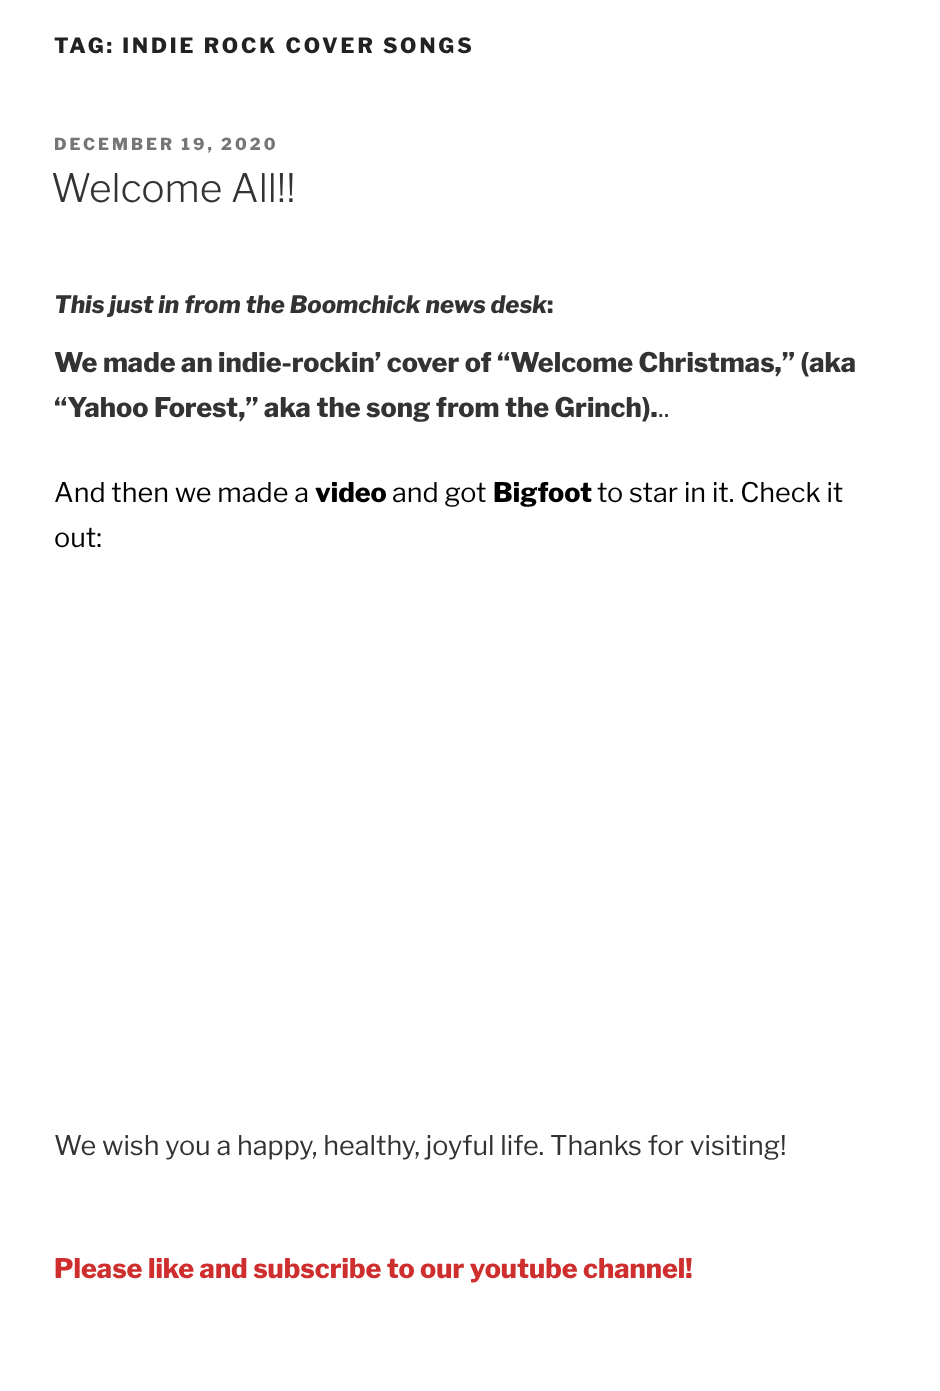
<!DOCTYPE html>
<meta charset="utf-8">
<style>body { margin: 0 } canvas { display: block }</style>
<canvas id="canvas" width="940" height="1391"></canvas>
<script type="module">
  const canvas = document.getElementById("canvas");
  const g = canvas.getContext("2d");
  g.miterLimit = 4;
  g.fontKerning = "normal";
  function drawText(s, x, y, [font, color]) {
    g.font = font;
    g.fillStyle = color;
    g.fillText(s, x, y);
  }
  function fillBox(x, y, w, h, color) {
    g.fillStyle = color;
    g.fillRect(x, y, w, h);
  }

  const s1 = ["100 21px Libre Franklin", "#222222"];
  const s2 = ["100 16.5px Libre Franklin", "#767676"];
  const s3 = ["100 39px 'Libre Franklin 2'", "#333333"];
  const s4 = ["italic 100 24px Libre Franklin", "#333333"];
  const s5 = ["100 24px Libre Franklin", "#333333"];
  const s6 = ["100 27px Libre Franklin", "#333333"];
  const s7 = ["100 27px 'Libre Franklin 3'", "#333333"];
  const s8 = ["100 27px 'Libre Franklin 3'", "#000000"];
  const s9 = ["100 27px Libre Franklin", "#000000"];
  const s10 = ["100 27px Libre Franklin", "#CF2E2E"];

  fillBox(0, 0, 940, 1391, "#FFFFFF");
  g.letterSpacing = "2.95px";
  drawText("TAG: INDIE ROCK COVER SONGS", 54, 53, s1);
  g.letterSpacing = "3px";
  drawText("DECEMBER 19, 2020", 54, 150, s2);
  g.letterSpacing = "0px";
  drawText("Welcome All!!", 51, 202, s3);
  drawText("This just in from the Boomchick news desk", 54, 313, s4);
  drawText(":", 547, 313, s5);
  drawText("We made an indie-rockin’ cover of “Welcome Christmas,” (aka", 54, 372, s6);
  drawText("“Yahoo Forest,” aka the song from the Grinch).", 54, 417, s6);
  drawText("..", 658, 417, s7);
  drawText("And then we made a", 54, 502, s8);
  drawText("video", 315, 502, s9);
  drawText("and got", 392, 502, s8);
  drawText("Bigfoot", 493, 502, s9);
  drawText("to star in it. Check it", 597, 502, s8);
  drawText("out:", 54, 547, s8);
  drawText("We wish you a happy, healthy, joyful life. Thanks for visiting!", 54, 1155, s7);
  drawText("Please like and subscribe to our youtube channel!", 54, 1278, s10);
</script>
